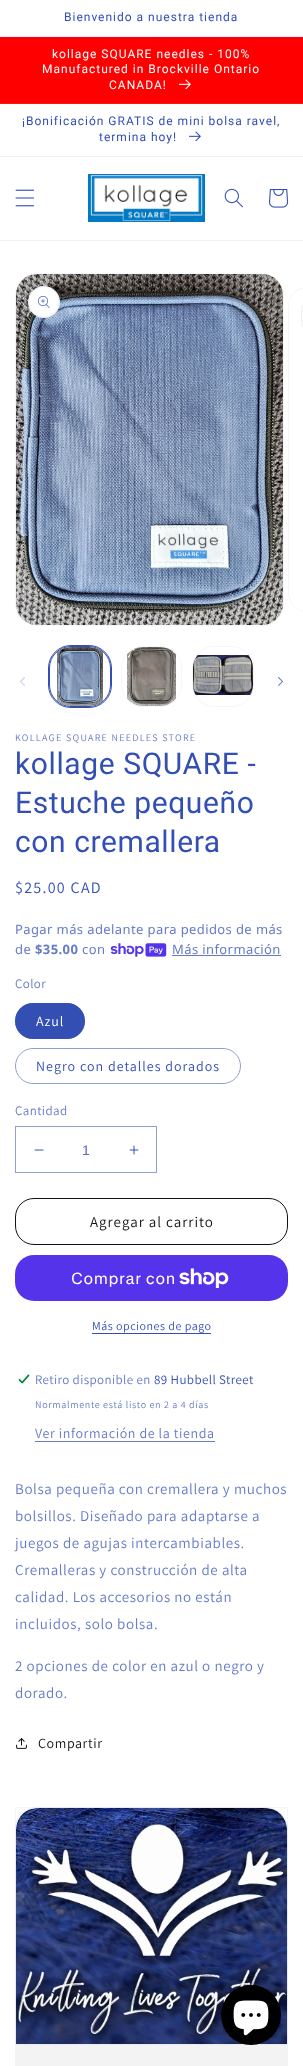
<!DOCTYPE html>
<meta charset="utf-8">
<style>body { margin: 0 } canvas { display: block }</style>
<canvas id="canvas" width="303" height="2066"></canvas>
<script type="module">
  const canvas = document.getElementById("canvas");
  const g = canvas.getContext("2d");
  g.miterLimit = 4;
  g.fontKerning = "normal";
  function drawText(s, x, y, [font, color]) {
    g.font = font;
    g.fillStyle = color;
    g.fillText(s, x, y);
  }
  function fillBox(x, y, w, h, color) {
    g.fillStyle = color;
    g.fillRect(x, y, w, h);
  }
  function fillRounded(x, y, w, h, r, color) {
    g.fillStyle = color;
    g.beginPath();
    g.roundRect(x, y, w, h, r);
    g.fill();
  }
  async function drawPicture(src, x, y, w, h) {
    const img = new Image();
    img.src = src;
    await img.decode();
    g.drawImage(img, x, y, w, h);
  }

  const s1 = ["12px Roboto", "#334FB4"];
  const s2 = ["12px Roboto", "#FFFFFF"];
  const s3 = ["10px Assistant", "#667BC7"];
  const s4 = ["30px Roboto", "#334FB4"];
  const s5 = ["16px Assistant", "#334FB4"];
  const s6 = ["13px Noto Sans", "#667BC7"];
  const s7 = ["bold 13px Noto Sans", "#667BC7"];
  const s8 = ["13px Assistant", "#667BC7"];
  const s9 = ["14px Assistant", "#FFFFFF"];
  const s10 = ["14px Assistant", "#334FB4"];
  const s11 = ["14px Liberation Sans", "#5269BF"];
  const s12 = ["15px Assistant", "#121212"];
  const s13 = ["16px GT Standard", "#FFFFFF"];
  const s14 = ["12px Assistant", "#334FB4"];
  const s15 = ["13px Assistant", "#334FB4"];
  const s16 = ["14px Assistant", "#667BC7"];
  const s17 = ["15px Assistant", "#667BC7"];
  const s18 = ["14px Assistant", "#121212"];

  fillBox(0, 0, 303, 2066, "#FFFFFF");
  fillBox(0, 36, 303, 1, "#EFF1F9");
  g.letterSpacing = "1px";
  drawText("Bienvenido a nuestra tienda", 64, 21, s1);
  fillBox(0, 37, 303, 66, "#FF0000");
  fillBox(0, 103, 303, 1, "#FF1414");
  drawText("kollage SQUARE needles - 100%", 52, 58, s2);
  drawText("Manufactured in Brockville Ontario", 42, 73, s2);
  drawText("CANADA!", 109, 89, s2);
  await drawPicture("pic1.png", 179, 79, 12, 11);
  fillBox(0, 156, 303, 1, "#EFF1F9");
  drawText("¡Bonificación GRATIS de mini bolsa ravel,", 22, 125, s1);
  drawText("termina hoy!", 99, 141, s1);
  await drawPicture("pic2.png", 189, 131, 12, 11);
  fillBox(0, 240, 303, 1, "#EFF1F9");
  await drawPicture("pic3.png", 15, 189, 20, 18);
  await drawPicture("pic4.png", 88, 174, 117, 48);
  await drawPicture("pic5.png", 224, 188, 19, 20);
  await drawPicture("pic6.png", 269, 189, 20, 19);
  g.beginPath();
  g.roundRect(15.5, 273.5, 268, 352, 21.5);
  g.strokeStyle = "#F5F6FB";
  g.stroke();
  await drawPicture("pic7.png", 16, 274, 267, 351);
  g.fillStyle = "#FFFFFF";
  g.beginPath();
  g.arc(44, 302, 16, 0, Math.PI * 2);
  g.fill();
  g.beginPath();
  g.arc(44, 302, 15.5, 0, Math.PI * 2);
  g.strokeStyle = "rgba(51, 79, 180, 0.1)";
  g.stroke();
  await drawPicture("pic8.png", 38, 296, 12, 12);
  g.beginPath();
  g.roundRect(288.5, 287.5, 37, 324, 21.5);
  g.strokeStyle = "#F5F6FB";
  g.stroke();
  g.beginPath();
  g.roundRect(301.5, 300.5, 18, 31, 15.5);
  g.strokeStyle = "#EBEDF8";
  g.stroke();
  await drawPicture("pic9.png", 20, 677, 5, 9);
  g.beginPath();
  g.roundRect(48.5, 645.5, 63, 62, 22.5);
  g.strokeStyle = "#334FB4";
  g.stroke();
  g.beginPath();
  g.roundRect(49.5, 646.5, 61, 60, 21.5);
  g.stroke();
  await drawPicture("pic10.png", 57, 647, 46, 59);
  g.beginPath();
  g.roundRect(121.5, 646.5, 60, 60, 21.5);
  g.strokeStyle = "#F5F6FB";
  g.stroke();
  await drawPicture("pic11.png", 127, 647, 49, 59);
  g.beginPath();
  g.roundRect(192.5, 646.5, 61, 60, 21.5);
  g.stroke();
  await drawPicture("pic12.png", 193, 655, 60, 40);
  await drawPicture("pic13.png", 278, 677, 5, 9);
  g.letterSpacing = "1.3px";
  drawText("KOLLAGE SQUARE NEEDLES STORE", 15, 741, s3);
  g.letterSpacing = "0.6px";
  drawText("kollage SQUARE -", 15, 774, s4);
  drawText("Estuche pequeño", 15, 813, s4);
  drawText("con cremallera", 15, 852, s4);
  g.letterSpacing = "1.3px";
  drawText("$25.00 CAD", 15, 893, s5);
  g.letterSpacing = "0.4px";
  drawText("Pagar más adelante para pedidos de más", 15, 934, s6);
  drawText("de", 15, 954, s6);
  drawText("$35.00", 35, 954, s7);
  drawText("con", 82, 954, s6);
  await drawPicture("pic14.png", 110, 943, 57, 14);
  drawText("Más información", 172, 954, s6);
  fillBox(172, 955, 109, 1, "#667BC7");
  drawText("Color", 15, 988, s8);
  fillRounded(15, 1003, 70, 36, 18, "#334FB4");
  g.beginPath();
  g.roundRect(15.5, 1003.5, 69, 35, 17.5);
  g.strokeStyle = "rgba(51, 79, 180, 0.55)";
  g.stroke();
  g.letterSpacing = "1px";
  drawText("Azul", 36, 1026, s9);
  g.beginPath();
  g.roundRect(15.5, 1048.5, 225, 35, 17.5);
  g.strokeStyle = "#8F9ED6";
  g.stroke();
  drawText("Negro con detalles dorados", 36, 1071, s10);
  g.letterSpacing = "0.4px";
  drawText("Cantidad", 15, 1115, s8);
  await drawPicture("pic15.png", 34, 1149, 10, 2);
  await drawPicture("pic16.png", 129, 1145, 10, 10);
  g.strokeRect(15.5, 1126.5, 141, 46);
  g.letterSpacing = "0px";
  drawText("1", 82, 1155, s11);
  g.beginPath();
  g.roundRect(15.5, 1198.5, 272, 46, 18.5);
  g.strokeStyle = "#121212";
  g.stroke();
  g.letterSpacing = "1px";
  drawText("Agregar al carrito", 90, 1227, s12);
  fillRounded(15, 1255, 273, 46, 19, "#5433EB");
  g.letterSpacing = "0.6px";
  drawText("Comprar con", 71, 1284, s13);
  await drawPicture("pic17.png", 179, 1268, 50, 20);
  g.letterSpacing = "0.5px";
  drawText("Más opciones de pago", 92, 1330, s14);
  fillBox(92, 1333, 119, 1, "#334FB4");
  await drawPicture("pic18.png", 18, 1374, 12, 10);
  g.letterSpacing = "0.4px";
  drawText("Retiro disponible en", 35, 1384, s8);
  drawText("89 Hubbell Street", 154, 1384, s15);
  g.letterSpacing = "0.7px";
  drawText("Normalmente está listo en 2 a 4 días", 35, 1408, s3);
  g.letterSpacing = "0.6px";
  drawText("Ver información de la tienda", 35, 1438, s16);
  fillBox(35, 1441, 180, 1, "#667BC7");
  drawText("Bolsa pequeña con cremallera y muchos", 15, 1494, s17);
  drawText("bolsillos. Diseñado para adaptarse a", 15, 1521, s17);
  drawText("juegos de agujas intercambiables.", 15, 1548, s17);
  drawText("Cremalleras y construcción de alta", 15, 1575, s17);
  drawText("calidad. Los accesorios no están", 15, 1602, s17);
  drawText("incluidos, solo bolsa.", 15, 1629, s17);
  drawText("2 opciones de color en azul o negro y", 15, 1671, s17);
  drawText("dorado.", 15, 1698, s17);
  await drawPicture("pic19.png", 16, 1738, 11, 11);
  drawText("Compartir", 38, 1748, s18);
  g.fillStyle = "#F3F3F3";
  g.beginPath();
  g.roundRect(15, 1807, 273, 238, [22, 22, 0, 0]);
  g.fill();
  g.strokeStyle = "rgba(51, 79, 180, 0.05)";
  g.strokeRect(15.5, 1807.5, 272, 237);
  await drawPicture("pic20.png", 16, 1808, 271, 236);
  fillBox(15, 2045, 273, 21, "#F3F3F3");
  g.fillStyle = "#000000";
  g.beginPath();
  g.arc(251, 2015, 30, 0, Math.PI * 2);
  g.fill();
  await drawPicture("pic21.png", 233, 2000, 36, 36);
</script>
